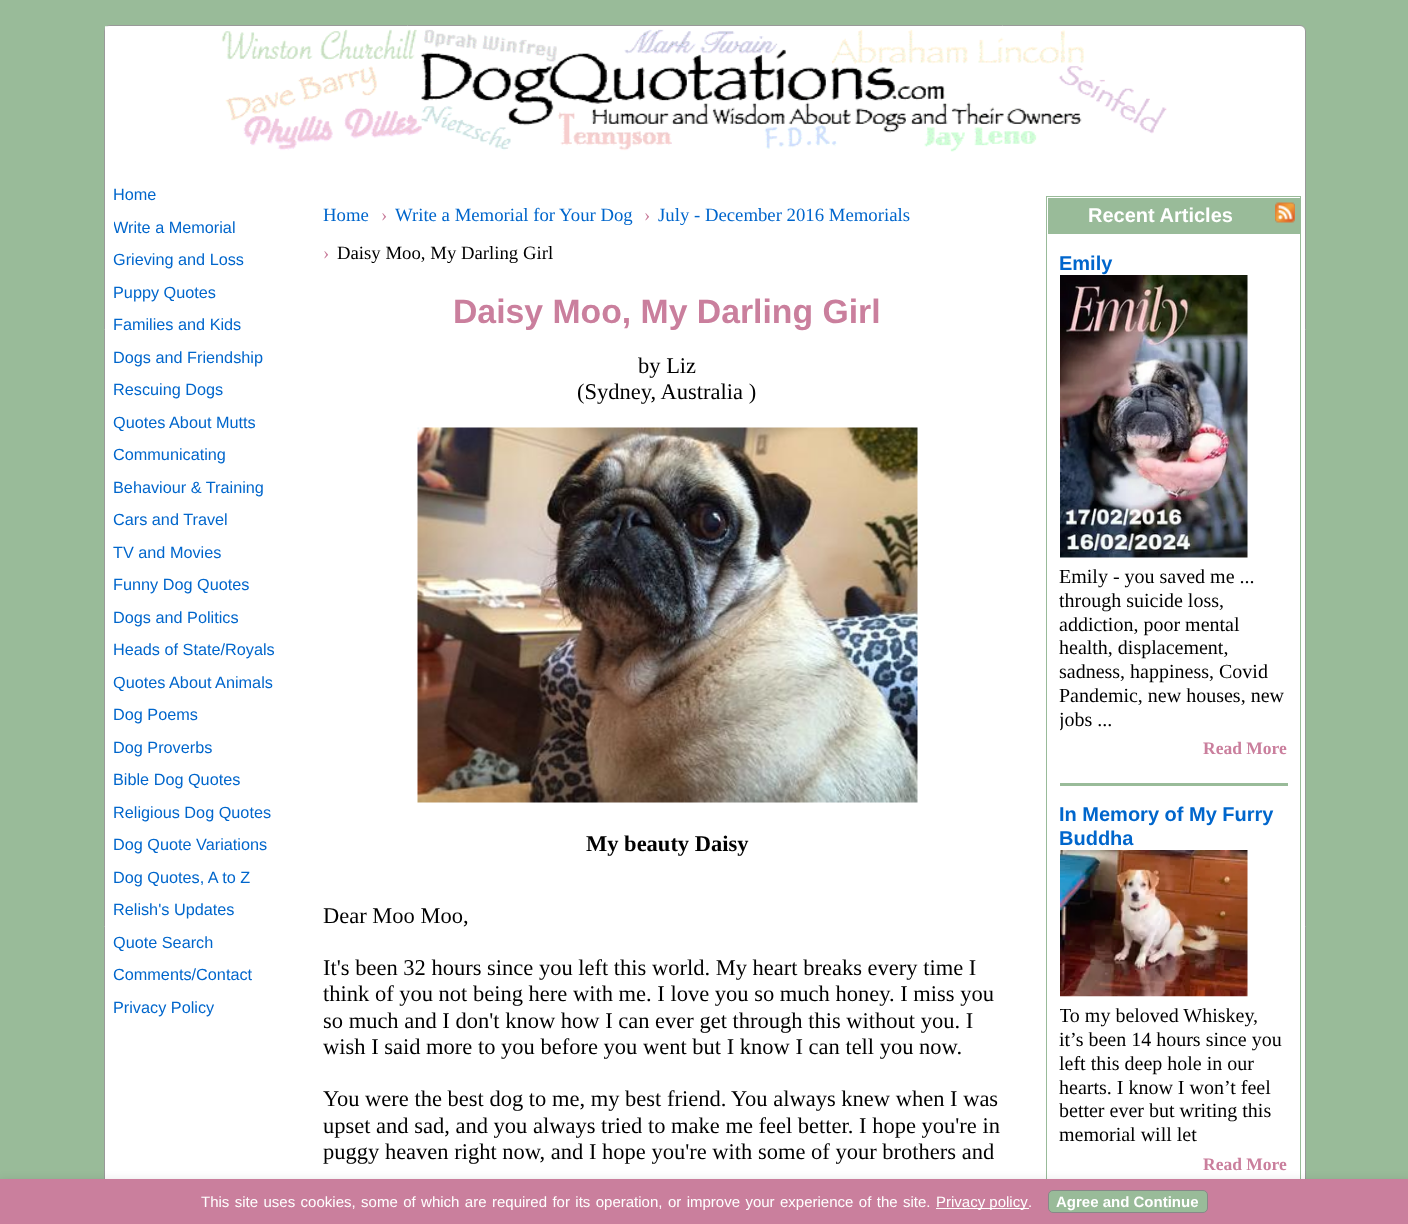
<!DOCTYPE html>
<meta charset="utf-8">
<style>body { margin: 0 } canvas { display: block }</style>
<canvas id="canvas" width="1408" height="1224"></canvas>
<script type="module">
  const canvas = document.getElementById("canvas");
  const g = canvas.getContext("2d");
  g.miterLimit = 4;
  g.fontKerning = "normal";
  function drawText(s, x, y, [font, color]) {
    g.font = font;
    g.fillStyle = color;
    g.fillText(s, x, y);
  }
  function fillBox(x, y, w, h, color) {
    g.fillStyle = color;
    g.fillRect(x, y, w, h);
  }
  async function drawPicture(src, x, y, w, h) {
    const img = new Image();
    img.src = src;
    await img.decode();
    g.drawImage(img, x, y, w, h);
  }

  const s1 = ["16.25px Liberation Sans", "#0066CC"];
  const s2 = ["18.75px Liberation Serif", "#0066CC"];
  const s3 = ["18.75px Liberation Serif", "#CA7F9D"];
  const s4 = ["18.75px Liberation Serif", "#000000"];
  const s5 = ["bold 33.75px Liberation Sans", "#CA7F9D"];
  const s6 = ["22.5px Liberation Serif", "#000000"];
  const s7 = ["bold 22.5px Liberation Serif", "#000000"];
  const s8 = ["bold 20px Liberation Sans", "#FFFFFF"];
  const s9 = ["bold 20px Liberation Sans", "#0066CC"];
  const s10 = ["20px Liberation Serif", "#000000"];
  const s11 = ["bold 17.5px Liberation Serif", "#CA7F9D"];
  const s12 = ["15px Liberation Sans", "#FFFFFF"];
  const s13 = ["bold 15px Liberation Sans", "#FFFFFF"];

  fillBox(0, 0, 1408, 1224, "#99BB99");
  g.fillStyle = "#FFFFFF";
  g.beginPath();
  g.roundRect(104.5, 25.5, 1201, 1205, 5.5);
  g.fill();
  g.strokeStyle = "#999999";
  g.stroke();
  await drawPicture("pic1.png", 105, 26, 1062, 126);
  drawText("Home", 113, 200, s1);
  g.save();
  g.beginPath();
  g.rect(114, 211, 181, 33);
  g.clip();
  drawText("Write a Memorial", 113, 233, s1);
  g.restore();
  drawText("Grieving and Loss", 113, 265, s1);
  drawText("Puppy Quotes", 113, 298, s1);
  drawText("Families and Kids", 113, 330, s1);
  drawText("Dogs and Friendship", 113, 363, s1);
  drawText("Rescuing Dogs", 113, 395, s1);
  drawText("Quotes About Mutts", 113, 428, s1);
  drawText("Communicating", 113, 460, s1);
  drawText("Behaviour & Training", 113, 493, s1);
  drawText("Cars and Travel", 113, 525, s1);
  drawText("TV and Movies", 113, 558, s1);
  drawText("Funny Dog Quotes", 113, 590, s1);
  drawText("Dogs and Politics", 113, 623, s1);
  drawText("Heads of State/Royals", 113, 655, s1);
  drawText("Quotes About Animals", 113, 688, s1);
  drawText("Dog Poems", 113, 720, s1);
  drawText("Dog Proverbs", 113, 753, s1);
  drawText("Bible Dog Quotes", 113, 785, s1);
  drawText("Religious Dog Quotes", 113, 818, s1);
  drawText("Dog Quote Variations", 113, 850, s1);
  drawText("Dog Quotes, A to Z", 113, 883, s1);
  drawText("Relish's Updates", 113, 915, s1);
  drawText("Quote Search", 113, 948, s1);
  drawText("Comments/Contact", 113, 980, s1);
  drawText("Privacy Policy", 113, 1013, s1);
  drawText("Home", 323, 221, s2);
  drawText("›", 381, 221, s3);
  drawText("Write a Memorial for Your Dog", 395, 221, s2);
  drawText("›", 644, 221, s3);
  drawText("July - December 2016 Memorials", 658, 221, s2);
  drawText("›", 323, 259, s3);
  drawText("Daisy Moo, My Darling Girl", 337, 259, s4);
  drawText("Daisy Moo, My Darling Girl", 453, 323, s5);
  drawText("by Liz", 638, 373, s6);
  drawText("(Sydney, Australia )", 577, 399, s6);
  await drawPicture("pic2.png", 417, 427, 501, 376);
  drawText("My beauty Daisy", 586, 851, s7);
  drawText("Dear Moo Moo,", 323, 923, s6);
  drawText("It's been 32 hours since you left this world. My heart breaks every time I", 323, 975, s6);
  drawText("think of you not being here with me. I love you so much honey. I miss you", 323, 1001, s6);
  drawText("so much and I don't know how I can ever get through this without you. I", 323, 1028, s6);
  drawText("wish I said more to you before you went but I know I can tell you now.", 323, 1054, s6);
  drawText("You were the best dog to me, my best friend. You always knew when I was", 323, 1106, s6);
  drawText("upset and sad, and you always tried to make me feel better. I hope you're in", 323, 1133, s6);
  drawText("puggy heaven right now, and I hope you're with some of your brothers and", 323, 1159, s6);
  g.strokeStyle = "#99BB99";
  g.strokeRect(1046.5, 196.5, 254, 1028);
  fillBox(1048, 198, 252, 36, "#99BB99");
  drawText("Recent Articles", 1088, 222, s8);
  await drawPicture("pic3.png", 1275, 202, 20, 21);
  drawText("Emily", 1059, 270, s9);
  await drawPicture("pic4.png", 1060, 275, 188, 283);
  drawText("Emily - you saved me ...", 1059, 583, s10);
  drawText("through suicide loss,", 1059, 607, s10);
  drawText("addiction, poor mental", 1059, 631, s10);
  drawText("health, displacement,", 1059, 654, s10);
  drawText("sadness, happiness, Covid", 1059, 678, s10);
  drawText("Pandemic, new houses, new", 1059, 702, s10);
  g.save();
  g.beginPath();
  g.rect(1060, 234, 228, 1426);
  g.clip();
  drawText("jobs ...", 1059, 726, s10);
  g.restore();
  drawText("Read More", 1203, 754, s11);
  fillBox(1060, 783, 228, 3, "#99BB99");
  drawText("In Memory of My Furry", 1059, 821, s9);
  drawText("Buddha", 1059, 845, s9);
  await drawPicture("pic5.png", 1060, 850, 188, 147);
  g.save();
  g.beginPath();
  g.rect(1060, 234, 228, 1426);
  g.clip();
  drawText("To my beloved Whiskey,", 1059, 1022, s10);
  g.restore();
  drawText("it’s been 14 hours since you", 1059, 1046, s10);
  drawText("left this deep hole in our", 1059, 1070, s10);
  drawText("hearts. I know I won’t feel", 1059, 1094, s10);
  drawText("better ever but writing this", 1059, 1117, s10);
  drawText("memorial will let", 1059, 1141, s10);
  drawText("Read More", 1203, 1170, s11);
  g.fillStyle = "rgba(0, 0, 0, 0.2)";
  g.filter = "blur(6px)";
  g.beginPath();
  g.rect(-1, 1183, 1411, 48);
  g.fill();
  g.filter = "none";
  fillBox(0, 1179, 1408, 45, "#CA7F9D");
  g.wordSpacing = "1.25px";
  drawText("This site uses cookies, some of which are required for its operation, or improve your experience of the site.", 201, 1207, s12);
  fillBox(936, 1208, 93, 1, "#FFFFFF");
  g.wordSpacing = "0px";
  drawText("Privacy policy", 936, 1207, s12);
  drawText(".", 1028, 1207, s12);
  g.fillStyle = "#99BB99";
  g.beginPath();
  g.roundRect(1048.5, 1190.5, 159, 22, 4.5);
  g.fill();
  g.strokeStyle = "#888888";
  g.stroke();
  drawText("Agree and Continue", 1056, 1207, s13);
</script>
